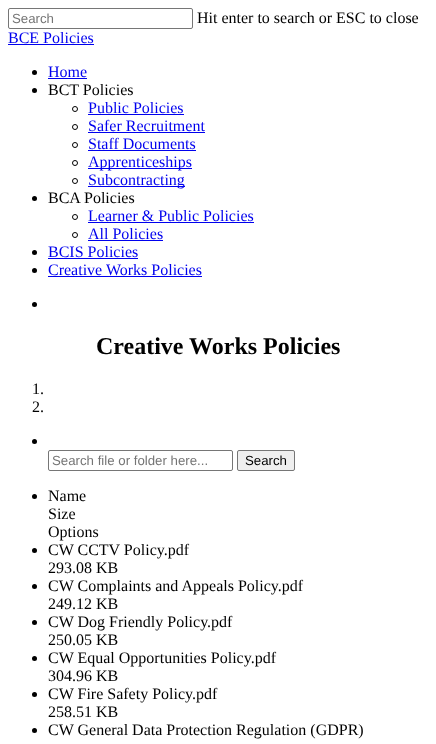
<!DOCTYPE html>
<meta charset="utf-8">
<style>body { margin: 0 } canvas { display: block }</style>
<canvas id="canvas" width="436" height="744"></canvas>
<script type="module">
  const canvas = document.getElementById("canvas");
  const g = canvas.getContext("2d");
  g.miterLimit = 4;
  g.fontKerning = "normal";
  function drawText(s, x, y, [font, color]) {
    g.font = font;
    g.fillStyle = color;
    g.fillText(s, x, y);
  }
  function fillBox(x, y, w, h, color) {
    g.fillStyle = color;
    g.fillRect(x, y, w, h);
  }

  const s1 = ["13.25px Liberation Sans", "#757575"];
  const s2 = ["16px Liberation Serif", "#000000"];
  const s3 = ["16px Liberation Serif", "#0000EE"];
  const s4 = ["bold 24px Liberation Serif", "#000000"];
  const s5 = ["13.25px Liberation Sans", "#000000"];

  fillBox(0, 0, 436, 744, "#FFFFFF");
  g.beginPath();
  g.roundRect(8.5, 8.5, 184, 20, 1.5);
  g.strokeStyle = "#767676";
  g.stroke();
  drawText("Search", 12, 23, s1);
  drawText("Hit enter to search or ESC to close", 197, 23, s2);
  drawText("BCE Policies", 8, 43, s3);
  fillBox(8, 44, 86, 1, "#0000EE");
  g.fillStyle = "#000000";
  g.beginPath();
  g.arc(34.5, 72.5, 2.5, 0, Math.PI * 2);
  g.fill();
  drawText("Home", 48, 77, s3);
  fillBox(48, 78, 39, 1, "#0000EE");
  g.fillStyle = "#000000";
  g.beginPath();
  g.arc(34.5, 90.5, 2.5, 0, Math.PI * 2);
  g.fill();
  drawText("BCT Policies", 48, 95, s2);
  g.beginPath();
  g.arc(75, 109, 2.5, 0, Math.PI * 2);
  g.strokeStyle = "#000000";
  g.stroke();
  drawText("Public Policies", 88, 113, s3);
  fillBox(88, 114, 96, 1, "#0000EE");
  g.beginPath();
  g.arc(75, 127, 2.5, 0, Math.PI * 2);
  g.stroke();
  drawText("Safer Recruitment", 88, 131, s3);
  fillBox(88, 132, 117, 1, "#0000EE");
  g.beginPath();
  g.arc(75, 145, 2.5, 0, Math.PI * 2);
  g.stroke();
  drawText("Staff Documents", 88, 149, s3);
  fillBox(88, 150, 108, 1, "#0000EE");
  g.beginPath();
  g.arc(75, 163, 2.5, 0, Math.PI * 2);
  g.stroke();
  fillBox(88, 168, 104, 1, "#0000EE");
  drawText("Apprenticeships", 88, 167, s3);
  g.beginPath();
  g.arc(75, 181, 2.5, 0, Math.PI * 2);
  g.stroke();
  fillBox(88, 186, 97, 1, "#0000EE");
  drawText("Subcontracting", 88, 185, s3);
  g.fillStyle = "#000000";
  g.beginPath();
  g.arc(34.5, 198.5, 2.5, 0, Math.PI * 2);
  g.fill();
  drawText("BCA Policies", 48, 203, s2);
  g.beginPath();
  g.arc(75, 217, 2.5, 0, Math.PI * 2);
  g.stroke();
  drawText("Learner & Public Policies", 88, 221, s3);
  fillBox(88, 222, 166, 1, "#0000EE");
  g.beginPath();
  g.arc(75, 235, 2.5, 0, Math.PI * 2);
  g.stroke();
  drawText("All Policies", 88, 239, s3);
  fillBox(88, 240, 75, 1, "#0000EE");
  g.fillStyle = "#000000";
  g.beginPath();
  g.arc(34.5, 252.5, 2.5, 0, Math.PI * 2);
  g.fill();
  drawText("BCIS Policies", 48, 257, s3);
  fillBox(48, 258, 90, 1, "#0000EE");
  g.fillStyle = "#000000";
  g.beginPath();
  g.arc(34.5, 270.5, 2.5, 0, Math.PI * 2);
  g.fill();
  drawText("Creative Works Policies", 48, 275, s3);
  fillBox(48, 276, 154, 1, "#0000EE");
  g.fillStyle = "#000000";
  g.beginPath();
  g.arc(34.5, 304.5, 2.5, 0, Math.PI * 2);
  g.fill();
  drawText("Creative Works Policies", 96, 354, s4);
  drawText("1.", 32, 394, s2);
  drawText("2.", 32, 412, s2);
  g.beginPath();
  g.arc(34.5, 441.5, 2.5, 0, Math.PI * 2);
  g.fill();
  g.beginPath();
  g.roundRect(48.5, 450.5, 184, 20, 1.5);
  g.strokeStyle = "#767676";
  g.stroke();
  drawText("Search file or folder here...", 52, 465, s1);
  g.fillStyle = "#EFEFEF";
  g.beginPath();
  g.roundRect(237.5, 450.5, 57, 20, 1.5);
  g.fill();
  g.stroke();
  drawText("Search", 245, 465, s5);
  g.beginPath();
  g.arc(34.5, 496.5, 2.5, 0, Math.PI * 2);
  g.fill();
  drawText("Name", 48, 501, s2);
  drawText("Size", 48, 519, s2);
  drawText("Options", 48, 537, s2);
  g.beginPath();
  g.arc(34.5, 550.5, 2.5, 0, Math.PI * 2);
  g.fill();
  drawText("CW CCTV Policy.pdf", 48, 555, s2);
  drawText("293.08 KB", 48, 573, s2);
  g.beginPath();
  g.arc(34.5, 586.5, 2.5, 0, Math.PI * 2);
  g.fill();
  drawText("CW Complaints and Appeals Policy.pdf", 48, 591, s2);
  drawText("249.12 KB", 48, 609, s2);
  g.beginPath();
  g.arc(34.5, 622.5, 2.5, 0, Math.PI * 2);
  g.fill();
  drawText("CW Dog Friendly Policy.pdf", 48, 627, s2);
  drawText("250.05 KB", 48, 645, s2);
  g.beginPath();
  g.arc(34.5, 658.5, 2.5, 0, Math.PI * 2);
  g.fill();
  drawText("CW Equal Opportunities Policy.pdf", 48, 663, s2);
  drawText("304.96 KB", 48, 681, s2);
  g.beginPath();
  g.arc(34.5, 694.5, 2.5, 0, Math.PI * 2);
  g.fill();
  drawText("CW Fire Safety Policy.pdf", 48, 699, s2);
  drawText("258.51 KB", 48, 717, s2);
  g.beginPath();
  g.arc(34.5, 730.5, 2.5, 0, Math.PI * 2);
  g.fill();
  drawText("CW General Data Protection Regulation (GDPR)", 48, 735, s2);
</script>
